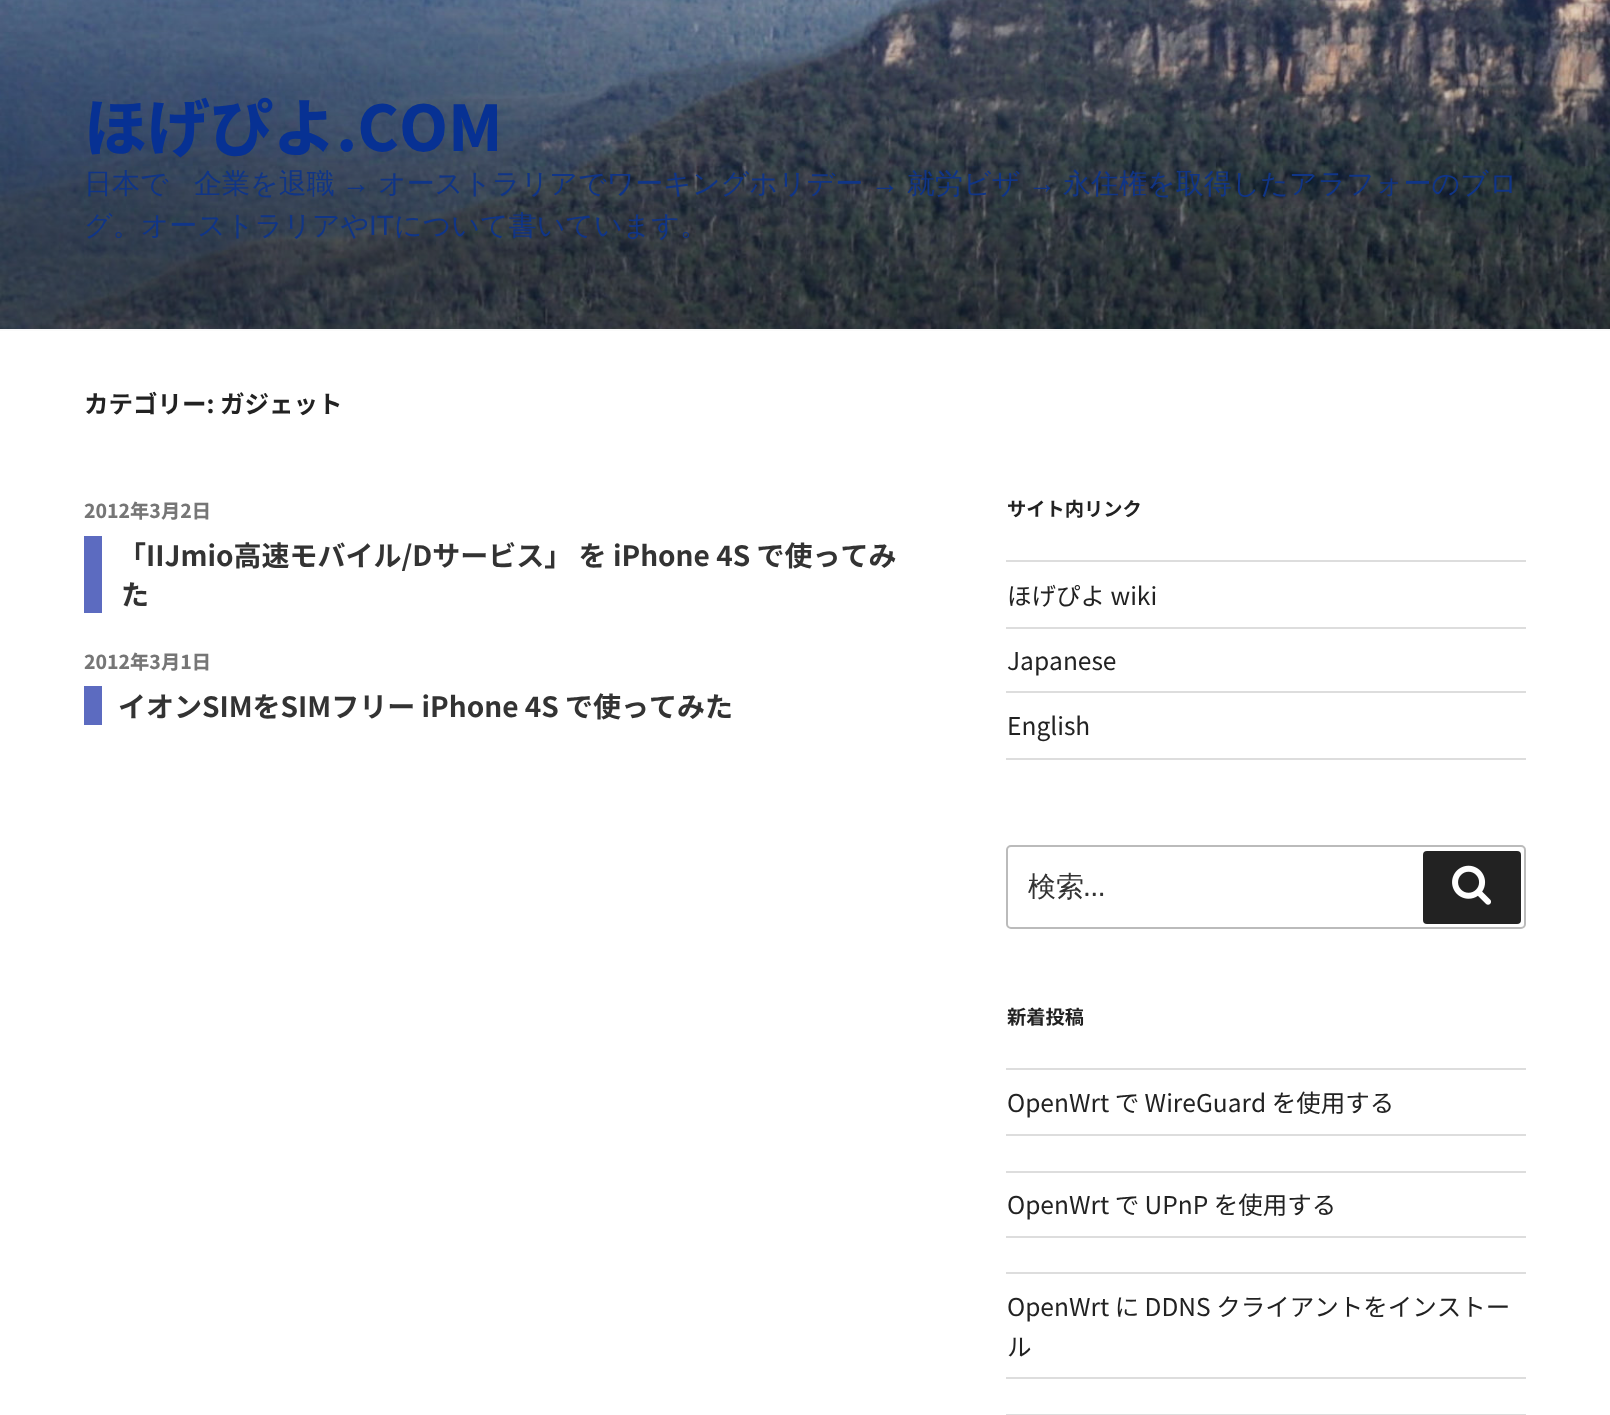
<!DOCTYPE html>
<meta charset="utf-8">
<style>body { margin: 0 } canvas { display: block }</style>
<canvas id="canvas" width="1610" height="1415"></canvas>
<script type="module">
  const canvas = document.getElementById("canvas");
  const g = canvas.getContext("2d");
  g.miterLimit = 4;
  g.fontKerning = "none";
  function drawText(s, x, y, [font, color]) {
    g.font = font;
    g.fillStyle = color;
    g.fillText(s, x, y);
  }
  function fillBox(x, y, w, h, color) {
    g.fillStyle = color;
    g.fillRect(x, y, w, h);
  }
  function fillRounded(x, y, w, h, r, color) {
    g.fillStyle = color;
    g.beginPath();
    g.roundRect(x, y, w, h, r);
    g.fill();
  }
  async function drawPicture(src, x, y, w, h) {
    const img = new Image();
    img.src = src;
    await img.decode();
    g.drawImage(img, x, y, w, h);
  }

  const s1 = ["800 63px Noto Sans JP", "#073193"];
  const s2 = ["500 28px WenQuanYi Zen Hei", "#103587"];
  const s3 = ["28px Liberation Sans", "#103587"];
  const s4 = ["bold 24.5px Noto Sans JP", "#222222"];
  const s5 = ["800 19.25px Noto Sans JP", "#767676"];
  const s6 = ["bold 28px Noto Sans JP", "#333333"];
  const s7 = ["bold 19.25px Noto Sans JP", "#222222"];
  const s8 = ["24.5px Noto Sans JP", "#222222"];
  const s9 = ["500 28px WenQuanYi Zen Hei", "#333333"];
  const s10 = ["28px Libre Franklin", "#333333"];

  fillBox(0, 0, 1610, 1415, "#FFFFFF");
  fillBox(0, 329, 1610, 2, "#FAFAFA");
  await drawPicture("pic1.png", 0, 0, 1610, 329);
  drawText("ほげぴよ.COM", 84, 151, s1);
  drawText("日本で", 84, 193, s2);
  drawText("企業を退職", 194, 193, s2);
  drawText("→", 342, 193, s3);
  drawText("オーストラリアでワーキングホリデー", 378, 193, s2);
  drawText("→", 871, 193, s3);
  drawText("就労ビザ", 907, 193, s2);
  drawText("→", 1028, 193, s3);
  drawText("永住権を取得したアラフォーのブロ", 1063, 193, s2);
  drawText("グ。オーストラリアや", 84, 235, s2);
  drawText("IT", 369, 235, s3);
  drawText("について書いています。", 394, 235, s2);
  drawText("カテゴリー: ガジェット", 84, 413, s4);
  drawText("2012年3月2日", 84, 518, s5);
  fillBox(84, 536, 18, 77, "#5C6BC0");
  drawText("「IIJmio高速モバイル/Dサービス」 を iPhone 4S で使ってみ", 118, 566, s6);
  drawText("た", 121, 605, s6);
  drawText("2012年3月1日", 84, 669, s5);
  fillBox(84, 686, 18, 39, "#5C6BC0");
  drawText("イオンSIMをSIMフリー iPhone 4S で使ってみた", 118, 717, s6);
  drawText("サイト内リンク", 1007, 516, s7);
  fillBox(1006, 560, 520, 2, "#DDDDDD");
  fillBox(1006, 627, 520, 2, "#DDDDDD");
  drawText("ほげぴよ wiki", 1007, 605, s8);
  fillBox(1006, 691, 520, 2, "#DDDDDD");
  drawText("Japanese", 1007, 670, s8);
  fillBox(1006, 758, 520, 2, "#DDDDDD");
  drawText("English", 1007, 735, s8);
  g.beginPath();
  g.roundRect(1007, 846, 518, 82, 4);
  g.strokeStyle = "#BBBBBB";
  g.lineWidth = 2;
  g.stroke();
  drawText("検索", 1028, 896, s9);
  drawText("…", 1084, 896, s10);
  fillRounded(1423, 851, 98, 73, 4, "#222222");
  await drawPicture("pic2.png", 1452, 865, 39, 40);
  drawText("新着投稿", 1007, 1024, s7);
  fillBox(1006, 1068, 520, 2, "#DDDDDD");
  fillBox(1006, 1134, 520, 2, "#DDDDDD");
  drawText("OpenWrt で WireGuard を使用する", 1007, 1112, s8);
  fillBox(1006, 1171, 520, 2, "#DDDDDD");
  fillBox(1006, 1236, 520, 2, "#DDDDDD");
  drawText("OpenWrt で UPnP を使用する", 1007, 1214, s8);
  fillBox(1006, 1272, 520, 2, "#DDDDDD");
  fillBox(1006, 1377, 520, 2, "#DDDDDD");
  drawText("OpenWrt に DDNS クライアントをインストー", 1007, 1316, s8);
  drawText("ル", 1007, 1356, s8);
  fillBox(1006, 1414, 520, 1, "#DDDDDD");
</script>
